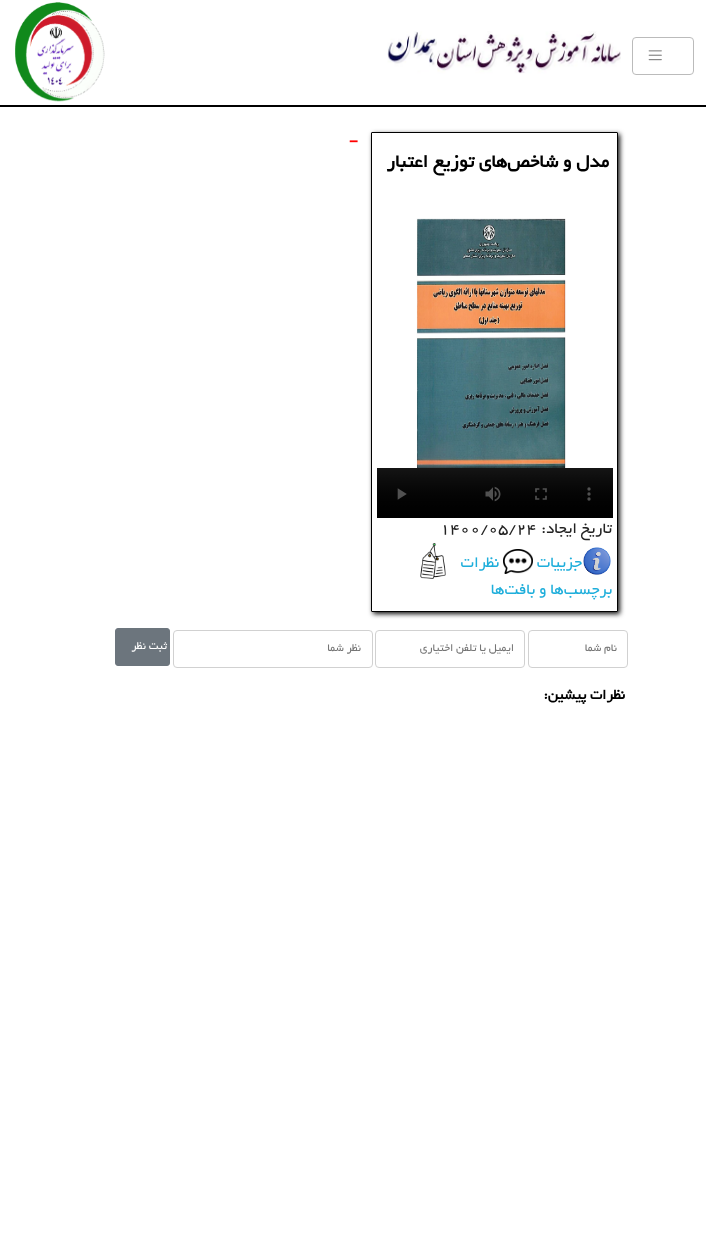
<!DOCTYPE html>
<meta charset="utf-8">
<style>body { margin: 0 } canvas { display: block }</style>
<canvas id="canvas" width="706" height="1251"></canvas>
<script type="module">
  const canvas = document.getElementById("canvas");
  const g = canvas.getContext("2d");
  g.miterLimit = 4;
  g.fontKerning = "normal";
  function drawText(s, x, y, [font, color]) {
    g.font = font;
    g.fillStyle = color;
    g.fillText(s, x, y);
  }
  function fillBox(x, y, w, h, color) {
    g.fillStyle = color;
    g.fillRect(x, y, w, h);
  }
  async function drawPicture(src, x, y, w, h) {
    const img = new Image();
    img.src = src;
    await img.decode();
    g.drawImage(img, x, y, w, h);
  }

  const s1 = ["bold 15.5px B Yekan", "#FF0000"];
  const s2 = ["bold 20px B Yekan", "#000000"];
  const s3 = ["17px B Yekan", "#222222"];
  const s4 = ["17px B Yekan", "#1EAEDB"];
  const s5 = ["12px B Yekan", "#757575"];
  const s6 = ["12px B Yekan", "#FFFFFF"];
  const s7 = ["bold 15.5px B Yekan", "#000000"];

  fillBox(0, 0, 706, 1251, "#FFFFFF");
  g.beginPath();
  g.roundRect(632.5, 37.5, 61, 37, 3.5);
  g.strokeStyle = "#BBBBBB";
  g.stroke();
  await drawPicture("pic1.png", 648, 50, 14, 11);
  await drawPicture("pic2.png", 387, 31, 234, 43);
  await drawPicture("pic3.png", 15, 2, 90, 100);
  fillBox(0, 105, 706, 2, "#000000");
  drawText("-", 349, 144, s1);
  g.fillStyle = "#111111";
  g.filter = "blur(2.5px)";
  g.beginPath();
  g.roundRect(373, 134, 247, 480, 1);
  g.fill();
  g.filter = "none";
  g.fillStyle = "#FFFFFF";
  g.beginPath();
  g.roundRect(371.5, 132.5, 246, 479, 0.5);
  g.fill();
  g.strokeStyle = "#000000";
  g.stroke();
  g.direction = "rtl";
  drawText("مدل و شاخص‌های توزیع اعتبار", 609, 167, s2);
  await drawPicture("pic4.png", 416, 218, 195, 250);
  await drawPicture("pic5.png", 377, 468, 236, 50);
  drawText("تاریخ", 612, 533, s3);
  drawText("ایجاد:", 577, 533, s3);
  g.direction = "ltr";
  drawText("1400/05/24", 440, 533, s3);
  await drawPicture("pic6.png", 583, 547, 28, 28);
  g.direction = "rtl";
  drawText("جزییات", 582, 567, s4);
  await drawPicture("pic7.png", 503, 549, 30, 25);
  drawText("نظرات", 499, 567, s4);
  await drawPicture("pic8.png", 420, 543, 26, 36);
  drawText("برچسب‌ها و بافت‌ها", 612, 594, s4);
  g.beginPath();
  g.roundRect(528.5, 630.5, 99, 37, 3.5);
  g.strokeStyle = "#D1D1D1";
  g.stroke();
  drawText("نام شما", 617, 651, s5);
  g.beginPath();
  g.roundRect(375.5, 630.5, 149, 37, 3.5);
  g.stroke();
  drawText("ایمیل یا تلفن اختیاری", 514, 651, s5);
  g.beginPath();
  g.roundRect(173.5, 630.5, 199, 37, 3.5);
  g.stroke();
  drawText("نظر شما", 361, 651, s5);
  g.fillStyle = "#6C757D";
  g.beginPath();
  g.roundRect(115.5, 628.5, 54, 37, 2.5);
  g.fill();
  g.strokeStyle = "#6C757D";
  g.stroke();
  g.letterSpacing = "1.25px";
  g.wordSpacing = "-1px";
  drawText("ثبت نظر", 167, 649, s6);
  g.letterSpacing = "0px";
  g.wordSpacing = "0px";
  drawText("نظرات پیشین:", 625, 699, s7);
</script>
